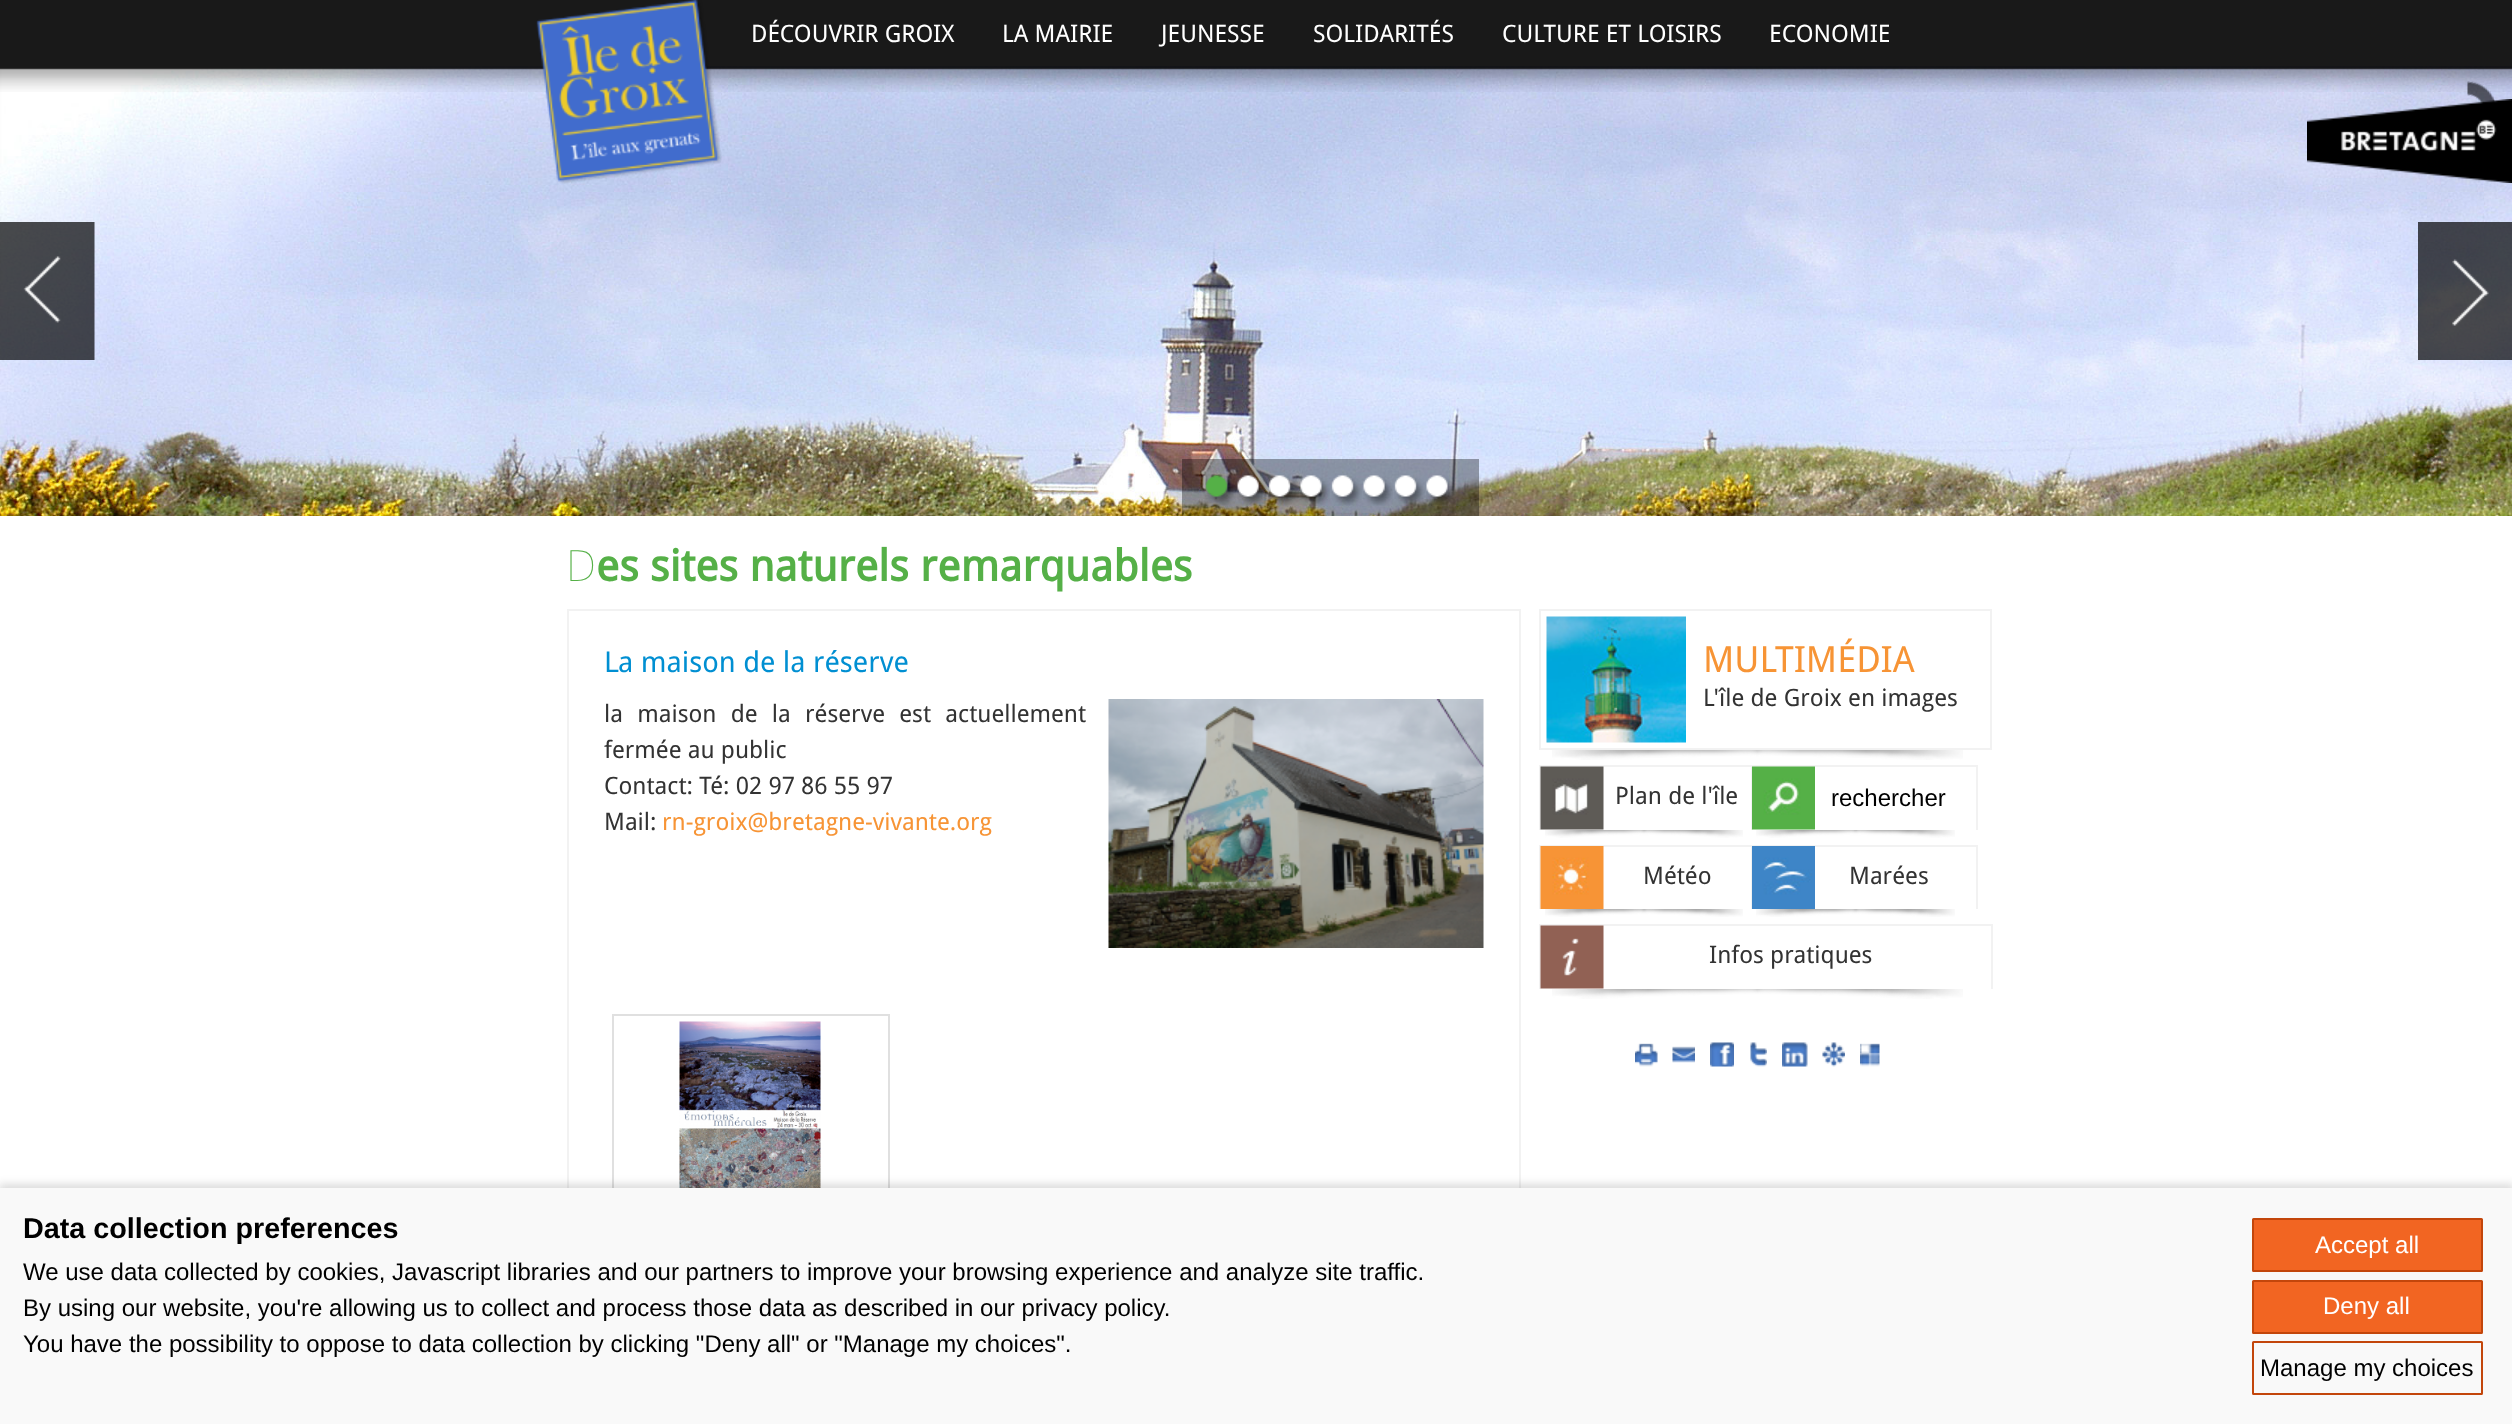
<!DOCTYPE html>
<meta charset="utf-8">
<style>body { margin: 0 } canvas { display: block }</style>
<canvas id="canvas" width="2512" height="1424"></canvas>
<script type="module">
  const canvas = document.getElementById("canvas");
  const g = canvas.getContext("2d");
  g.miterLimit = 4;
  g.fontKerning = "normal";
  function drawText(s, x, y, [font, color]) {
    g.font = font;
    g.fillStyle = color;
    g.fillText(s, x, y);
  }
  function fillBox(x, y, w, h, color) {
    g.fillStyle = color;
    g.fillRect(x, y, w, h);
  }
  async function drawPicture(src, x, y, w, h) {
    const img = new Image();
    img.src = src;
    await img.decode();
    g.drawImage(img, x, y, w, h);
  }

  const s1 = ["24px Droid Sans", "#FFFFFF"];
  const s2 = ["100 43.25px Noto Sans", "#55B047"];
  const s3 = ["bold 43.25px Droid Sans", "#55B047"];
  const s4 = ["28.75px Noto Sans", "#008FD2"];
  const s5 = ["28.75px Droid Sans", "#008FD2"];
  const s6 = ["24px Droid Sans", "#333333"];
  const s7 = ["24px Droid Sans", "#F79435"];
  const s8 = ["36px Droid Sans", "#F79435"];
  const s9 = ["24px Liberation Sans", "#000000"];
  const s10 = ["bold 28.75px Liberation Sans", "#000000"];
  const s11 = ["24px Liberation Sans", "#FFFFFF"];

  fillBox(0, 0, 2512, 1424, "#FFFFFF");
  await drawPicture("pic3.png", 0, 66, 2512, 450);
  await drawPicture("pic4.png", 2467, 81, 30, 23);
  await drawPicture("pic1.png", 0, 0, 2512, 92);
  await drawPicture("pic2.png", 536, 0, 186, 184);
  drawText("DÉCOUVRIR GROIX", 751, 42, s1);
  drawText("LA MAIRIE", 1002, 42, s1);
  drawText("JEUNESSE", 1161, 42, s1);
  drawText("SOLIDARITÉS", 1313, 42, s1);
  drawText("CULTURE ET LOISIRS", 1502, 42, s1);
  drawText("ECONOMIE", 1769, 42, s1);
  await drawPicture("pic5.png", 0, 222, 95, 138);
  await drawPicture("pic6.png", 2418, 222, 94, 138);
  fillBox(1182, 459, 297, 57, "rgba(0, 0, 0, 0.35)");
  await drawPicture("pic7.png", 1205, 475, 31, 31);
  await drawPicture("pic8.png", 1237, 475, 30, 31);
  await drawPicture("pic9.png", 1268, 475, 31, 31);
  await drawPicture("pic10.png", 1300, 475, 30, 31);
  await drawPicture("pic11.png", 1331, 475, 31, 31);
  await drawPicture("pic12.png", 1363, 475, 30, 31);
  await drawPicture("pic13.png", 1394, 475, 31, 31);
  await drawPicture("pic14.png", 1426, 475, 30, 30);
  await drawPicture("pic15.png", 2307, 99, 205, 84);
  drawText("D", 566, 581, s2);
  drawText("es sites naturels remarquables", 596, 581, s3);
  g.strokeStyle = "#F2F2F2";
  g.lineWidth = 2;
  g.strokeRect(568, 610, 952, 738);
  drawText("L", 604, 672, s4);
  drawText("a maison de la réserve", 618, 672, s5);
  g.wordSpacing = "8px";
  drawText("la maison de la réserve est actuellement", 604, 722, s6);
  g.wordSpacing = "0px";
  drawText("fermée au public", 604, 758, s6);
  await drawPicture("pic16.png", 1108, 699, 376, 249);
  drawText("Contact: Té: 02 97 86 55 97", 604, 794, s6);
  drawText("Mail:", 604, 830, s6);
  drawText("rn-groix@bretagne-vivante.org", 662, 830, s7);
  g.strokeStyle = "#E0E0E0";
  g.strokeRect(613, 1015, 276, 246);
  await drawPicture("pic17.png", 679, 1021, 142, 167);
  await drawPicture("pic18.png", 1552, 750, 411, 10);
  g.strokeStyle = "#F2F2F2";
  g.strokeRect(1540, 610, 451, 139);
  await drawPicture("pic19.png", 1546, 616, 140, 127);
  drawText("MULTIMÉDIA", 1703, 672, s8);
  drawText("L'île de Groix en images", 1703, 706, s6);
  await drawPicture("pic20.png", 1545, 830, 198, 8);
  fillBox(1539, 765, 438, 2, "#F2F2F2");
  fillBox(1539, 765, 2, 65, "#F2F2F2");
  await drawPicture("pic21.png", 1540, 766, 64, 64);
  drawText("Plan de l'île", 1615, 804, s6);
  await drawPicture("pic22.png", 1756, 830, 199, 8);
  fillBox(1976, 765, 2, 65, "#F2F2F2");
  fillBox(1751, 765, 2, 65, "#F2F2F2");
  await drawPicture("pic23.png", 1752, 766, 63, 64);
  drawText("rechercher", 1831, 806, s9);
  await drawPicture("pic24.png", 1545, 909, 198, 8);
  fillBox(1539, 845, 438, 2, "#F2F2F2");
  fillBox(1539, 845, 2, 64, "#F2F2F2");
  await drawPicture("pic25.png", 1540, 846, 64, 63);
  drawText("Météo", 1643, 884, s6);
  await drawPicture("pic26.png", 1756, 909, 199, 8);
  fillBox(1976, 845, 2, 64, "#F2F2F2");
  fillBox(1751, 845, 2, 64, "#F2F2F2");
  await drawPicture("pic27.png", 1752, 846, 63, 63);
  drawText("Marées", 1849, 884, s6);
  await drawPicture("pic28.png", 1552, 989, 411, 10);
  fillBox(1539, 924, 453, 2, "#F2F2F2");
  fillBox(1991, 924, 2, 65, "#F2F2F2");
  fillBox(1539, 924, 2, 65, "#F2F2F2");
  await drawPicture("pic29.png", 1540, 925, 64, 64);
  drawText("Infos pratiques", 1709, 963, s6);
  await drawPicture("pic30.png", 1635, 1043, 23, 24);
  await drawPicture("pic31.png", 1672, 1046, 23, 17);
  await drawPicture("pic32.png", 1710, 1042, 24, 25);
  await drawPicture("pic33.png", 1750, 1042, 17, 25);
  await drawPicture("pic34.png", 1782, 1042, 26, 25);
  await drawPicture("pic35.png", 1822, 1042, 23, 25);
  await drawPicture("pic36.png", 1860, 1043, 20, 24);
  g.fillStyle = "rgba(0, 0, 0, 0.14)";
  g.filter = "blur(4px)";
  g.beginPath();
  g.rect(-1, 1184, 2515, 240);
  g.fill();
  g.filter = "none";
  fillBox(0, 1188, 2512, 236, "#F9F9F9");
  drawText("Data collection preferences", 23, 1238, s10);
  drawText("We use data collected by cookies, Javascript libraries and our partners to improve your browsing experience and analyze site traffic.", 23, 1280, s9);
  drawText("By using our website, you're allowing us to collect and process those data as described in our privacy policy.", 23, 1316, s9);
  drawText("You have the possibility to oppose to data collection by clicking \"Deny all\" or \"Manage my choices\".", 23, 1352, s9);
  g.fillStyle = "#F26522";
  g.beginPath();
  g.roundRect(2253, 1219, 229, 52, 0.5);
  g.fill();
  g.strokeStyle = "#C3460B";
  g.stroke();
  drawText("Accept all", 2315, 1253, s11);
  g.fillStyle = "#F26522";
  g.beginPath();
  g.roundRect(2253, 1281, 229, 52, 0.5);
  g.fill();
  g.stroke();
  drawText("Deny all", 2323, 1314, s11);
  g.beginPath();
  g.roundRect(2253, 1342, 229, 52, 0.5);
  g.stroke();
  drawText("Manage my choices", 2260, 1376, s9);
</script>
